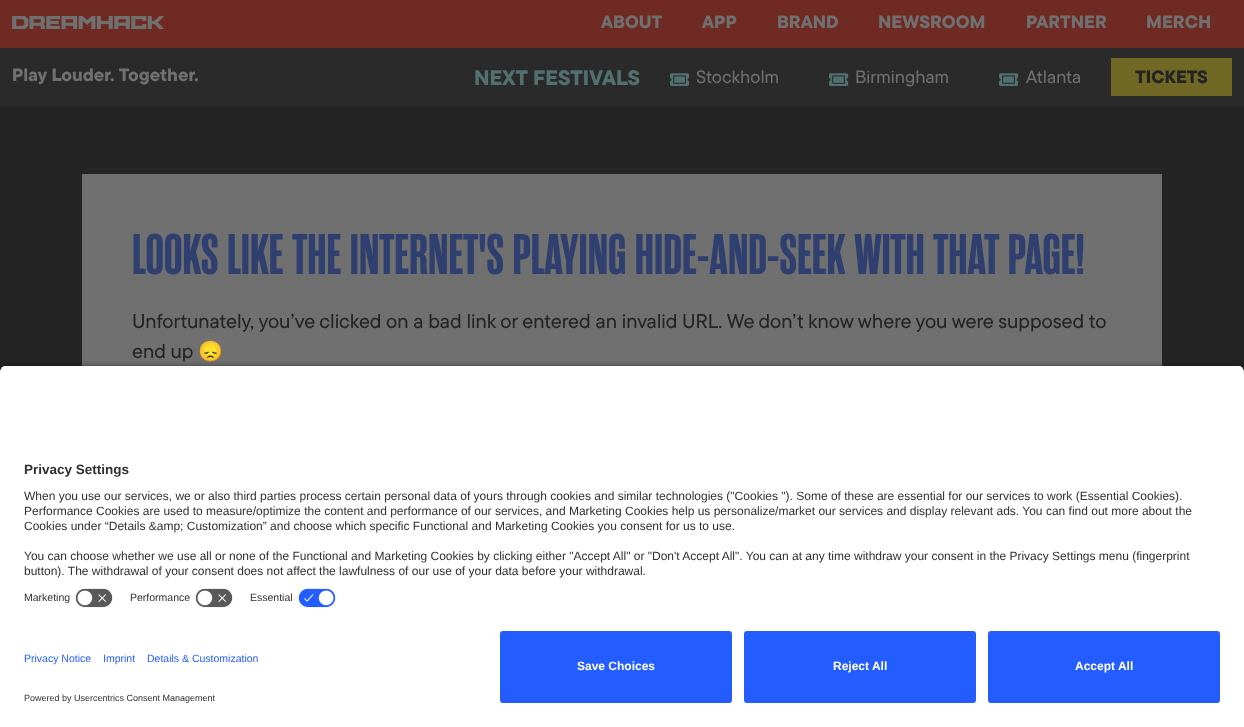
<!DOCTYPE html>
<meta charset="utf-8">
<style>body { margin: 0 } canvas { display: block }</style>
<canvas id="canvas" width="1244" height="727"></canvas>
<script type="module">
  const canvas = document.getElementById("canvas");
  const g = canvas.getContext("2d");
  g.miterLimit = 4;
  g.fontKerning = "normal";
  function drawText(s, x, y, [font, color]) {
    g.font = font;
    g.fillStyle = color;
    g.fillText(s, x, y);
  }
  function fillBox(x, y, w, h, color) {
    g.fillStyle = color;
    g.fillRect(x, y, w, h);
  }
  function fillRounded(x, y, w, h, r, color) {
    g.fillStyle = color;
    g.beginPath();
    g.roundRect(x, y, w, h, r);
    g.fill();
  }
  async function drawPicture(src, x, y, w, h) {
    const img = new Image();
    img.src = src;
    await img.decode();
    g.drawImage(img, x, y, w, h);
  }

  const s1 = ["800 18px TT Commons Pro", "#707070"];
  const s2 = ["800 21px TT Commons Pro", "#537070"];
  const s3 = ["500 18px TT Commons Pro", "#707070"];
  const s4 = ["800 18px TT Commons Pro", "#242424"];
  const s5 = ["bold 57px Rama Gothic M", "#2F4070"];
  const s6 = ["500 20px TT Commons Pro", "#242424"];
  const s7 = ["20px Noto Color Emoji", "#242424"];
  const s8 = ["bold 13.5px Liberation Sans", "#303030"];
  const s9 = ["12px Liberation Sans", "#303030"];
  const s10 = ["10.5px Liberation Sans", "#303030"];
  const s11 = ["10.5px Liberation Sans", "#245DFF"];
  const s12 = ["9px Liberation Sans", "#303030"];
  const s13 = ["bold 12px Liberation Sans", "#FFFFFF"];

  fillBox(0, 0, 1244, 727, "#702A24");
  await drawPicture("pic1.png", 12, 16, 152, 13);
  drawText("ABOUT", 601, 28, s1);
  drawText("APP", 702, 28, s1);
  drawText("BRAND", 777, 28, s1);
  drawText("NEWSROOM", 878, 28, s1);
  drawText("PARTNER", 1026, 28, s1);
  drawText("MERCH", 1146, 28, s1);
  fillBox(0, 48, 1244, 58, "#2A2A2A");
  drawText("Play Louder. Together.", 12, 81, s1);
  drawText("NEXT FESTIVALS", 474, 85, s2);
  await drawPicture("pic2.png", 670, 73, 20, 13);
  drawText("Stockholm", 696, 83, s3);
  await drawPicture("pic2.png", 829, 73, 20, 13);
  drawText("Birmingham", 855, 83, s3);
  await drawPicture("pic2.png", 999, 73, 20, 13);
  drawText("Atlanta", 1026, 83, s3);
  fillBox(1111, 58, 121, 38, "#706824");
  drawText("TICKETS", 1135, 83, s4);
  fillBox(0, 106, 1244, 267, "#242424");
  fillBox(82, 174, 1080, 192, "#707070");
  drawText("LOOKS LIKE THE INTERNET'S PLAYING HIDE-AND-SEEK WITH THAT PAGE!", 132, 274, s5);
  drawText("Unfortunately, you’ve clicked on a bad link or entered an invalid URL. We don’t know where you were supposed to", 132, 328, s6);
  drawText("end up", 132, 358, s6);
  drawText("😞", 198, 358, s7);
  g.fillStyle = "rgba(0, 0, 0, 0.8)";
  g.filter = "blur(3.5px)";
  g.beginPath();
  g.roundRect(0, 368, 1244, 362, 8);
  g.fill();
  g.filter = "none";
  g.save();
  g.beginPath();
  g.roundRect(0, 365, 1244, 258, [8, 8, 0, 0]);
  g.clip();
  fillBox(0, 366, 1244, 257, "#FFFFFF");
  fillBox(0, 366, 1244, 217, "#FFFFFF");
  g.restore();
  drawText("Privacy Settings", 24, 474, s8);
  drawText("When you use our services, we or also third parties process certain personal data of yours through cookies and similar technologies (\"Cookies \"). Some of these are essential for our services to work (Essential Cookies).", 24, 500, s9);
  drawText("Performance Cookies are used to measure/optimize the content and performance of our services, and Marketing Cookies help us personalize/market our services and display relevant ads. You can find out more about the", 24, 515, s9);
  drawText("Cookies under “Details &amp; Customization” and choose which specific Functional and Marketing Cookies you consent for us to use.", 24, 530, s9);
  drawText("You can choose whether we use all or none of the Functional and Marketing Cookies by clicking either \"Accept All\" or \"Don't Accept All\". You can at any time withdraw your consent in the Privacy Settings menu (fingerprint", 24, 560, s9);
  drawText("button). The withdrawal of your consent does not affect the lawfulness of our use of your data before your withdrawal.", 24, 575, s9);
  drawText("Marketing", 24, 601, s10);
  await drawPicture("pic3.png", 75, 588, 38, 20);
  drawText("Performance", 130, 601, s10);
  await drawPicture("pic3.png", 195, 588, 38, 20);
  drawText("Essential", 250, 601, s10);
  await drawPicture("pic4.png", 298, 588, 38, 20);
  fillBox(0, 623, 1244, 104, "#FFFFFF");
  drawText("Privacy Notice", 24, 662, s11);
  drawText("Imprint", 103, 662, s11);
  drawText("Details & Customization", 147, 662, s11);
  drawText("Powered by Usercentrics Consent Management", 24, 701, s12);
  fillRounded(500, 631, 232, 72, 3, "#245DFF");
  drawText("Save Choices", 577, 670, s13);
  fillRounded(744, 631, 232, 72, 3, "#245DFF");
  drawText("Reject All", 833, 670, s13);
  fillRounded(988, 631, 232, 72, 3, "#245DFF");
  drawText("Accept All", 1075, 670, s13);
</script>
